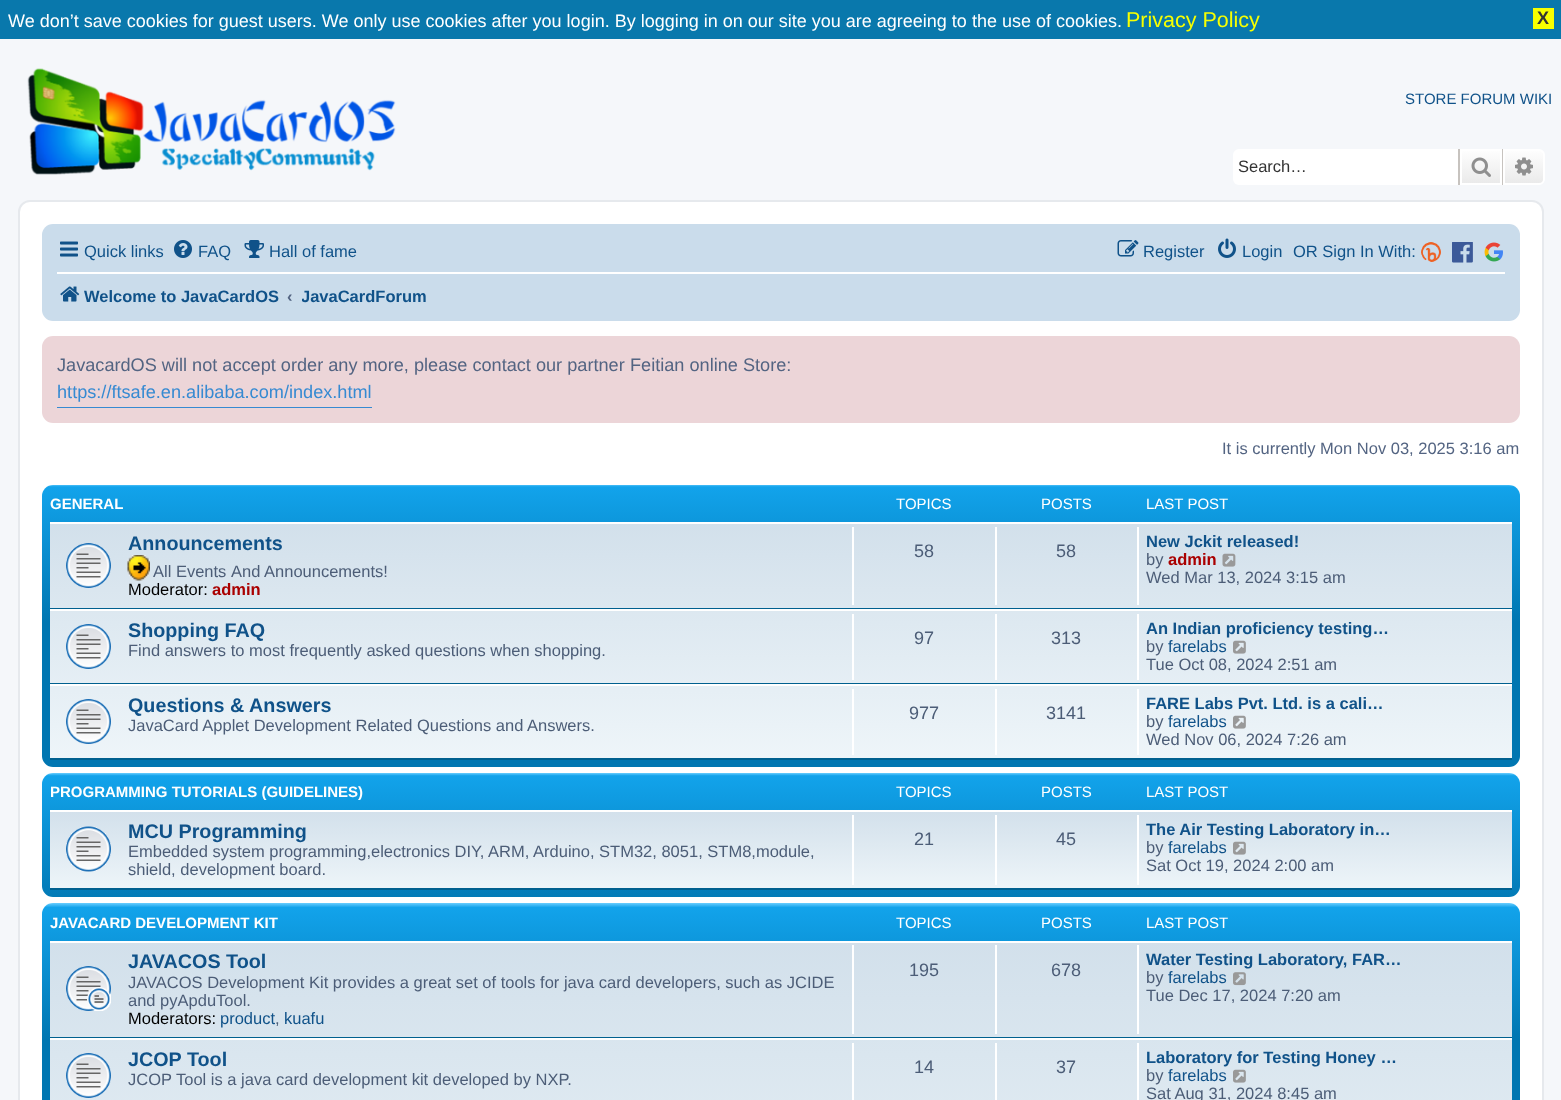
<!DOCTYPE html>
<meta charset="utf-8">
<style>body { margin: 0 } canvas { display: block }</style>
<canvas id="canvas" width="1561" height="1100"></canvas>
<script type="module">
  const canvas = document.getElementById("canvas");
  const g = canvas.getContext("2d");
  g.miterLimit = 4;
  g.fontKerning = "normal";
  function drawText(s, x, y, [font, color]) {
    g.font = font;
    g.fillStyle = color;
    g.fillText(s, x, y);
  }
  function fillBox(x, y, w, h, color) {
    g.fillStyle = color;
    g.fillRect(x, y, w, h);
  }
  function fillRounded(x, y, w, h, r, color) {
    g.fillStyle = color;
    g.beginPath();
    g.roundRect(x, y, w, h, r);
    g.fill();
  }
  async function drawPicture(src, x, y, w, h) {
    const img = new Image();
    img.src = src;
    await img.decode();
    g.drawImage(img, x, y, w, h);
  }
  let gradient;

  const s1 = ["18px Liberation Sans", "#FFFFFF"];
  const s2 = ["21.5px Liberation Sans", "#F7FF00"];
  const s3 = ["bold 18px Liberation Sans", "#333333"];
  const s4 = ["15px Liberation Sans", "#105289"];
  const s5 = ["16.5px Liberation Sans", "#333333"];
  const s6 = ["16.5px Liberation Sans", "#105289"];
  const s7 = ["bold 16.5px Liberation Sans", "#105289"];
  const s8 = ["bold 16.5px Liberation Sans", "#536482"];
  const s9 = ["18.15px Liberation Sans", "#536482"];
  const s10 = ["18.15px Liberation Sans", "#368AD2"];
  const s11 = ["16.5px Liberation Sans", "#536482"];
  const s12 = ["bold 15px Liberation Sans", "#FFFFFF"];
  const s13 = ["15px Liberation Sans", "#FFFFFF"];
  const s14 = ["bold 19.75px Liberation Sans", "#105289"];
  const s15 = ["16.5px Liberation Sans", "#4C5D77"];
  const s16 = ["16.5px Liberation Sans", "#000000"];
  const s17 = ["bold 16.5px Liberation Sans", "#AA0000"];
  const s18 = ["18px Liberation Sans", "#4C5D77"];

  fillBox(0, 0, 1561, 1100, "#F5F7FA");
  fillBox(0, 0, 1561, 39, "#0978AC");
  drawText("We don’t save cookies for guest users. We only use cookies after you login. By logging in on our site you are agreeing to the use of cookies.", 8, 27, s1);
  drawText("Privacy Policy", 1126, 27, s2);
  fillBox(1533, 8, 21, 21, "#F7FF00");
  drawText("X", 1537, 24, s3);
  await drawPicture("pic1.png", 27, 68, 369, 107);
  drawText("STORE FORUM WIKI", 1405, 104, s4);
  g.fillStyle = "#FFFFFF";
  g.beginPath();
  g.roundRect(1233, 149, 225, 36, [6, 0, 0, 6]);
  g.fill();
  drawText("Search…", 1238, 172, s5);
  gradient = g.createLinearGradient(1481, 149, 1481, 185);
  gradient.addColorStop(0, "#FFFFFF");
  gradient.addColorStop(1, "#E9E9E9");
  g.fillStyle = gradient;
  g.fillRect(1462, 151, 38, 32);
  g.strokeStyle = "#FFFFFF";
  g.lineWidth = 2;
  g.strokeRect(1461, 150, 40, 34);
  fillBox(1502, 149, 1, 36, "#C7C3BF");
  fillBox(1458, 149, 2, 36, "#C7C3BF");
  await drawPicture("pic2.png", 1471, 157, 20, 20);
  gradient = g.createLinearGradient(1524, 149, 1524, 185);
  gradient.addColorStop(0, "#FFFFFF");
  gradient.addColorStop(1, "#E9E9E9");
  g.fillStyle = gradient;
  g.beginPath();
  g.roundRect(1504, 150, 40, 34, [0, 5, 5, 0]);
  g.fill();
  g.stroke();
  await drawPicture("pic3.png", 1515, 157, 18, 19);
  g.fillStyle = "#FFFFFF";
  g.beginPath();
  g.roundRect(19, 201, 1524, 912, 11);
  g.fill();
  g.strokeStyle = "#E6E9ED";
  g.stroke();
  fillRounded(42, 224, 1478, 97, 11, "#CADCEB");
  await drawPicture("pic4.png", 60, 241, 18, 16);
  drawText("Quick links", 84, 257, s6);
  await drawPicture("pic5.png", 174, 240, 18, 18);
  drawText("FAQ", 198, 257, s6);
  await drawPicture("pic6.png", 244, 240, 20, 18);
  drawText("Hall of fame", 269, 257, s6);
  await drawPicture("pic7.png", 1117, 240, 22, 17);
  drawText("Register", 1143, 257, s6);
  await drawPicture("pic8.png", 1218, 238, 18, 20);
  drawText("Login", 1242, 257, s6);
  drawText("OR Sign In With:", 1293, 257, s6);
  await drawPicture("pic9.png", 1421, 242, 20, 20);
  await drawPicture("pic10.png", 1452, 242, 21, 21);
  await drawPicture("pic11.png", 1484, 242, 19, 20);
  fillBox(57, 272, 1448, 2, "#FFFFFF");
  await drawPicture("pic12.png", 60, 286, 20, 16);
  drawText("Welcome to JavaCardOS", 84, 302, s7);
  drawText("‹", 287, 302, s8);
  g.save();
  g.beginPath();
  g.rect(302, 278, 124, 36);
  g.clip();
  drawText("JavaCardForum", 301, 302, s7);
  g.restore();
  fillRounded(42, 336, 1478, 87, 11, "#ECD5D8");
  drawText("JavacardOS will not accept order any more, please contact our partner", 57, 371, s9);
  drawText("Feitian online Store:", 630, 371, s9);
  fillBox(57, 407, 315, 1, "#368AD2");
  drawText("https://ftsafe.en.alibaba.com/index.html", 57, 398, s10);
  drawText("It is currently Mon Nov 03, 2025 3:16 am", 1222, 454, s11);
  gradient = g.createLinearGradient(781, 484, 781, 767);
  gradient.addColorStop(0, "#6ACEFF");
  gradient.addColorStop(0.01, "#12A3EB");
  gradient.addColorStop(0.49, "#0076B1");
  gradient.addColorStop(1, "#0076B1");
  g.fillStyle = gradient;
  g.beginPath();
  g.roundRect(42, 485, 1478, 282, 11);
  g.fill();
  drawText("GENERAL", 50, 509, s12);
  drawText("TOPICS", 896, 509, s13);
  drawText("POSTS", 1041, 509, s13);
  drawText("LAST POST", 1146, 509, s13);
  gradient = g.createLinearGradient(781, 522, 781, 759);
  gradient.addColorStop(0, "#D2E0EB");
  gradient.addColorStop(1, "#EEF5F9");
  g.fillStyle = gradient;
  g.fillRect(50, 524, 1462, 234);
  fillBox(50, 522, 1462, 2, "#FFFFFF");
  fillBox(50, 608, 1462, 1, "#00608F");
  await drawPicture("pic13.png", 66, 543, 45, 45);
  drawText("Announcements", 128, 550, s14);
  await drawPicture("pic14.png", 127, 555, 23, 26);
  drawText("All Events", 153, 577, s15);
  drawText("And Announcements!", 231, 577, s15);
  drawText("Moderator:", 128, 595, s16);
  drawText("admin", 212, 595, s17);
  fillBox(852, 527, 2, 78, "#FFFFFF");
  drawText("58", 914, 557, s18);
  fillBox(995, 527, 2, 78, "#FFFFFF");
  drawText("58", 1056, 557, s18);
  fillBox(1137, 527, 2, 78, "#FFFFFF");
  drawText("New Jckit released!", 1146, 547, s7);
  drawText("by", 1146, 565, s15);
  drawText("admin", 1168, 565, s17);
  await drawPicture("pic15.png", 1222, 553, 14, 14);
  drawText("Wed Mar 13, 2024 3:15 am", 1146, 583, s15);
  fillBox(50, 609, 1462, 2, "#FFFFFF");
  fillBox(50, 683, 1462, 1, "#00608F");
  await drawPicture("pic16.png", 66, 624, 45, 45);
  drawText("Shopping FAQ", 128, 637, s14);
  drawText("Find answers to most frequently asked questions when shopping.", 128, 656, s15);
  fillBox(852, 614, 2, 66, "#FFFFFF");
  drawText("97", 914, 644, s18);
  fillBox(995, 614, 2, 66, "#FFFFFF");
  drawText("313", 1051, 644, s18);
  fillBox(1137, 614, 2, 66, "#FFFFFF");
  drawText("An Indian proficiency testing…", 1146, 634, s7);
  drawText("by", 1146, 652, s15);
  drawText("farelabs", 1168, 652, s6);
  await drawPicture("pic17.png", 1233, 640, 13, 14);
  drawText("Tue Oct 08, 2024 2:51 am", 1146, 670, s15);
  fillBox(50, 684, 1462, 2, "#FFFFFF");
  fillBox(50, 758, 1462, 2, "#00608F");
  await drawPicture("pic18.png", 66, 699, 45, 45);
  drawText("Questions & Answers", 128, 712, s14);
  drawText("JavaCard Applet Development Related Questions and Answers.", 128, 731, s15);
  fillBox(852, 689, 2, 66, "#FFFFFF");
  drawText("977", 909, 719, s18);
  fillBox(995, 689, 2, 66, "#FFFFFF");
  drawText("3141", 1046, 719, s18);
  fillBox(1137, 689, 2, 66, "#FFFFFF");
  drawText("FARE Labs Pvt. Ltd. is a cali…", 1146, 709, s7);
  drawText("by", 1146, 727, s15);
  drawText("farelabs", 1168, 727, s6);
  await drawPicture("pic19.png", 1233, 715, 13, 14);
  drawText("Wed Nov 06, 2024 7:26 am", 1146, 745, s15);
  gradient = g.createLinearGradient(781, 773, 781, 910);
  gradient.addColorStop(0, "#6ACEFF");
  gradient.addColorStop(0.02, "#12A3EB");
  gradient.addColorStop(1, "#0076B1");
  g.fillStyle = gradient;
  g.beginPath();
  g.roundRect(42, 773, 1478, 124, 11);
  g.fill();
  drawText("PROGRAMMING TUTORIALS (GUIDELINES)", 50, 797, s12);
  drawText("TOPICS", 896, 797, s13);
  drawText("POSTS", 1041, 797, s13);
  drawText("LAST POST", 1146, 797, s13);
  gradient = g.createLinearGradient(781, 810, 781, 890);
  gradient.addColorStop(0, "#D2E0EB");
  gradient.addColorStop(1, "#EEF5F9");
  g.fillStyle = gradient;
  g.fillRect(50, 812, 1462, 76);
  fillBox(50, 810, 1462, 2, "#FFFFFF");
  fillBox(50, 888, 1462, 2, "#00608F");
  await drawPicture("pic20.png", 66, 826, 45, 46);
  drawText("MCU Programming", 128, 838, s14);
  drawText("Embedded system programming,electronics DIY, ARM, Arduino, STM32, 8051, STM8,module,", 128, 857, s15);
  drawText("shield, development board.", 128, 875, s15);
  fillBox(852, 815, 2, 70, "#FFFFFF");
  drawText("21", 914, 845, s18);
  fillBox(995, 815, 2, 70, "#FFFFFF");
  drawText("45", 1056, 845, s18);
  fillBox(1137, 815, 2, 70, "#FFFFFF");
  drawText("The Air Testing Laboratory in…", 1146, 835, s7);
  drawText("by", 1146, 853, s15);
  drawText("farelabs", 1168, 853, s6);
  await drawPicture("pic21.png", 1233, 841, 13, 14);
  drawText("Sat Oct 19, 2024 2:00 am", 1146, 871, s15);
  gradient = g.createLinearGradient(781, 903, 781, 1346);
  gradient.addColorStop(0, "#6ACEFF");
  gradient.addColorStop(0.01, "#12A3EB");
  gradient.addColorStop(0.31, "#0076B1");
  gradient.addColorStop(1, "#0076B1");
  g.fillStyle = gradient;
  g.beginPath();
  g.roundRect(42, 903, 1478, 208, 11);
  g.fill();
  drawText("JAVACARD DEVELOPMENT KIT", 50, 928, s12);
  drawText("TOPICS", 896, 928, s13);
  drawText("POSTS", 1041, 928, s13);
  drawText("LAST POST", 1146, 928, s13);
  gradient = g.createLinearGradient(781, 941, 781, 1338);
  gradient.addColorStop(0, "#D2E0EB");
  gradient.addColorStop(1, "#EEF5F9");
  g.fillStyle = gradient;
  g.fillRect(50, 943, 1462, 157);
  fillBox(50, 941, 1462, 2, "#FFFFFF");
  fillBox(50, 1037, 1462, 1, "#00608F");
  await drawPicture("pic22.png", 66, 966, 45, 45);
  drawText("JAVACOS Tool", 128, 968, s14);
  drawText("JAVACOS Development Kit provides a great set of tools for java card developers, such as JCIDE", 128, 988, s15);
  drawText("and pyApduTool.", 128, 1006, s15);
  drawText("Moderators:", 128, 1024, s16);
  drawText("product", 220, 1024, s6);
  drawText(",", 275, 1024, s15);
  drawText("kuafu", 284, 1024, s6);
  fillBox(852, 945, 2, 89, "#FFFFFF");
  drawText("195", 909, 976, s18);
  fillBox(995, 945, 2, 89, "#FFFFFF");
  drawText("678", 1051, 976, s18);
  fillBox(1137, 945, 2, 89, "#FFFFFF");
  drawText("Water Testing Laboratory, FAR…", 1146, 965, s7);
  drawText("by", 1146, 983, s15);
  drawText("farelabs", 1168, 983, s6);
  await drawPicture("pic23.png", 1233, 972, 13, 14);
  drawText("Tue Dec 17, 2024 7:20 am", 1146, 1001, s15);
  fillBox(50, 1038, 1462, 2, "#FFFFFF");
  await drawPicture("pic24.png", 66, 1053, 45, 45);
  drawText("JCOP Tool", 128, 1066, s14);
  drawText("JCOP Tool is a java card development kit developed by NXP.", 128, 1085, s15);
  fillBox(852, 1043, 2, 57, "#FFFFFF");
  drawText("14", 914, 1073, s18);
  fillBox(995, 1043, 2, 57, "#FFFFFF");
  drawText("37", 1056, 1073, s18);
  fillBox(1137, 1043, 2, 57, "#FFFFFF");
  drawText("Laboratory for Testing Honey …", 1146, 1063, s7);
  drawText("by", 1146, 1081, s15);
  drawText("farelabs", 1168, 1081, s6);
  await drawPicture("pic25.png", 1233, 1069, 13, 14);
  drawText("Sat Aug 31, 2024 8:45 am", 1146, 1099, s15);
</script>
